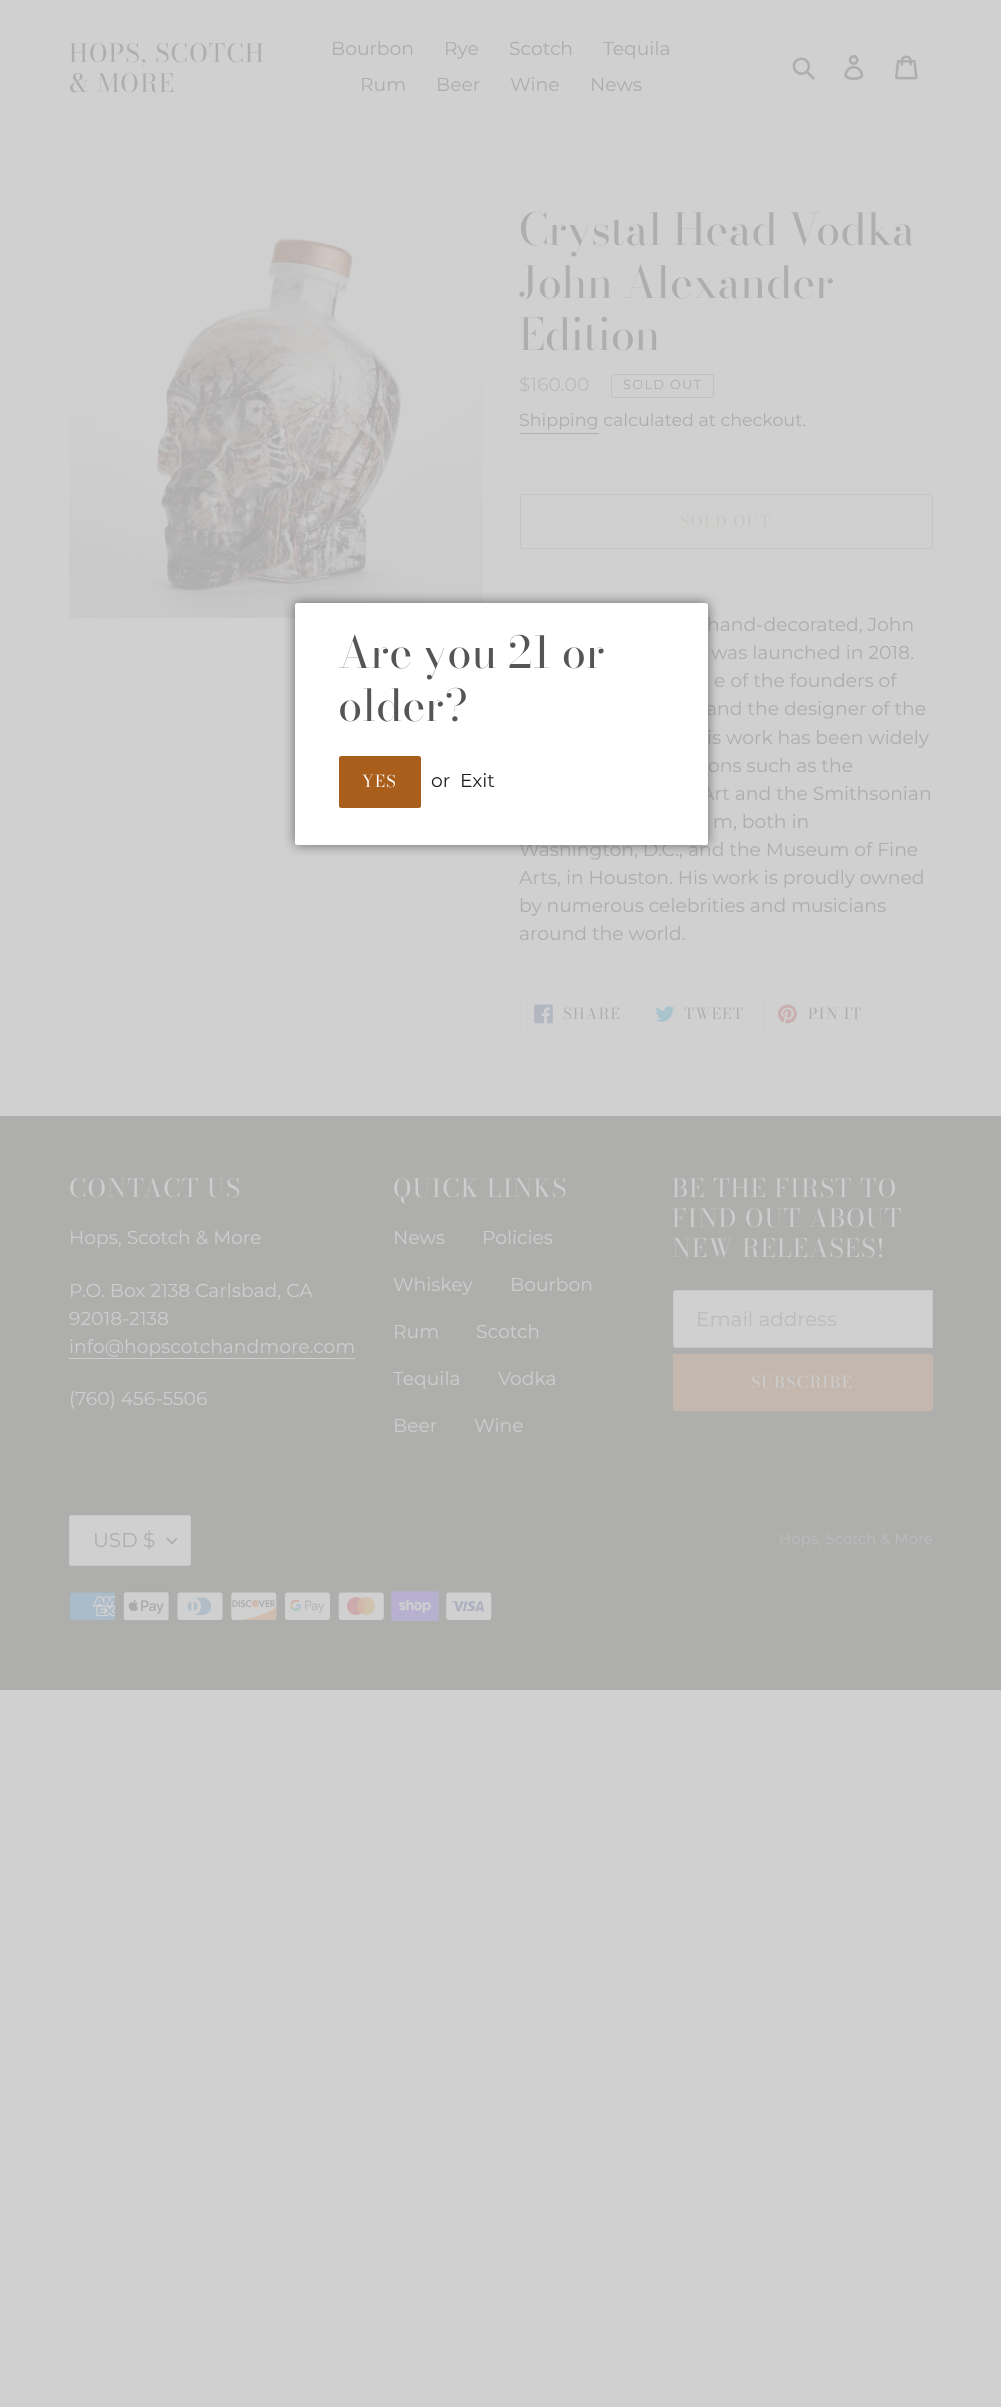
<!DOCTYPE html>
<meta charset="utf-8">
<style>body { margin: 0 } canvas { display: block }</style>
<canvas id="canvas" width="1001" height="2407"></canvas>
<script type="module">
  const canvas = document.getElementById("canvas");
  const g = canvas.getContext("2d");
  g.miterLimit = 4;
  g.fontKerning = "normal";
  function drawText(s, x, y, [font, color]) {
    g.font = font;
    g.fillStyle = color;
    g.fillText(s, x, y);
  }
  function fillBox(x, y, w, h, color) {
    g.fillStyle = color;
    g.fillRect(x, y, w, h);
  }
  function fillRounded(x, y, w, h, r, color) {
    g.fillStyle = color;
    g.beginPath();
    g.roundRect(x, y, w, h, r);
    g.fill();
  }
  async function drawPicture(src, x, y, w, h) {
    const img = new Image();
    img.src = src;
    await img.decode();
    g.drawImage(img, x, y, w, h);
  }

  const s1 = ["25px 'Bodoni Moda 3'", "#AFAEAE"];
  const s2 = ["18.75px Montserrat", "#AFAEAE"];
  const s3 = ["43.75px Bodoni Moda", "#AFAEAE"];
  const s4 = ["18.75px Montserrat", "#BCBCBC"];
  const s5 = ["13px Montserrat", "#AFAEAE"];
  const s6 = ["17.5px Montserrat", "#AFAEAE"];
  const s7 = ["16.25px 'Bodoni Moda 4'", "#CAC4BF"];
  const s8 = ["15px 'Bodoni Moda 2'", "#AFAEAE"];
  const s9 = ["25px 'Bodoni Moda 3'", "#CDCDCD"];
  const s10 = ["18.75px Montserrat", "#CDCDCD"];
  const s11 = ["20px Montserrat", "#BCBCBC"];
  const s12 = ["16.25px 'Bodoni Moda 4'", "#CDCDCD"];
  const s13 = ["20px Montserrat", "#AFAEAE"];
  const s14 = ["15px Montserrat", "#BCBCBC"];
  const s15 = ["43.75px Bodoni Moda", "#555555"];
  const s16 = ["16.25px 'Bodoni Moda 4'", "#FFFFFF"];
  const s17 = ["18.75px Montserrat", "#1F1C1A"];

  fillBox(0, 0, 1001, 2407, "#D0D0D0");
  fillBox(0, 134, 1001, 1, "#CDCDCD");
  g.letterSpacing = "1.25px";
  drawText("HOPS, SCOTCH", 69, 62, s1);
  drawText("& MORE", 69, 92, s1);
  g.letterSpacing = "0px";
  drawText("Bourbon", 331, 55, s2);
  drawText("Rye", 444, 55, s2);
  drawText("Scotch", 509, 55, s2);
  drawText("Tequila", 603, 55, s2);
  drawText("Rum", 360, 91, s2);
  drawText("Beer", 436, 91, s2);
  drawText("Wine", 510, 91, s2);
  drawText("News", 590, 91, s2);
  await drawPicture("pic1.png", 792, 57, 23, 23);
  await drawPicture("pic2.png", 844, 55, 20, 25);
  await drawPicture("pic3.png", 895, 55, 23, 25);
  await drawPicture("pic4.png", 69, 204, 414, 414);
  drawText("Crystal Head Vodka", 519, 245, s3);
  drawText("John Alexander", 519, 298, s3);
  drawText("Edition", 519, 350, s3);
  drawText("$160.00", 519, 391, s4);
  g.beginPath();
  g.roundRect(611.5, 374.5, 102, 23, 2);
  g.strokeStyle = "#C1C1C1";
  g.stroke();
  g.letterSpacing = "1.25px";
  drawText("SOLD OUT", 623, 389, s5);
  g.letterSpacing = "0px";
  drawText("Shipping calculated at checkout.", 519, 426, s6);
  fillBox(520, 433, 79, 1, "#AFAEAE");
  g.beginPath();
  g.roundRect(520.5, 494.5, 412, 54, 2);
  g.strokeStyle = "#CAC4BF";
  g.stroke();
  g.letterSpacing = "1.25px";
  drawText("SOLD OUT", 680, 527, s7);
  g.letterSpacing = "0px";
  drawText("hand-decorated, John", 707, 631, s2);
  drawText("was launched in 2018.", 711, 659, s2);
  drawText("e of the founders of", 714, 687, s2);
  drawText("and the designer of the", 706, 715, s2);
  drawText("is work has been widely", 707, 744, s2);
  drawText("ons such as the", 708, 772, s2);
  drawText("Art and the Smithsonian", 701, 800, s2);
  drawText("m, both in", 713, 828, s2);
  drawText("Washington, D.C., and the Museum of Fine", 519, 856, s2);
  drawText("Arts, in Houston. His work is proudly owned", 519, 884, s2);
  drawText("by numerous celebrities and musicians", 519, 912, s2);
  drawText("around the world.", 519, 940, s2);
  g.beginPath();
  g.roundRect(520.5, 993.5, 114, 41, 2);
  g.strokeStyle = "#CDCDCD";
  g.stroke();
  await drawPicture("pic5.png", 534, 1004, 19, 20);
  g.letterSpacing = "1.25px";
  drawText("SHARE", 563, 1019, s8);
  g.beginPath();
  g.roundRect(641.5, 993.5, 116, 41, 2);
  g.stroke();
  await drawPicture("pic6.png", 655, 1006, 20, 16);
  drawText("TWEET", 684, 1019, s8);
  g.beginPath();
  g.roundRect(764.5, 993.5, 110, 41, 2);
  g.stroke();
  await drawPicture("pic7.png", 778, 1004, 19, 20);
  drawText("PIN IT", 808, 1019, s8);
  fillBox(0, 1116, 1001, 574, "#AEAEAD");
  drawText("CONTACT US", 69, 1197, s9);
  g.letterSpacing = "0px";
  drawText("Hops, Scotch & More", 69, 1244, s10);
  drawText("P.O. Box 2138 Carlsbad, CA", 69, 1297, s10);
  drawText("92018-2138", 69, 1325, s10);
  drawText("info@hopscotchandmore.com", 69, 1353, s10);
  fillBox(69, 1358, 286, 1, "#CDCDCD");
  drawText("(760) 456-5506", 69, 1405, s10);
  g.letterSpacing = "1.25px";
  drawText("QUICK LINKS", 393, 1197, s9);
  g.letterSpacing = "0px";
  drawText("News", 393, 1244, s10);
  drawText("Policies", 482, 1244, s10);
  drawText("Whiskey", 393, 1291, s10);
  drawText("Bourbon", 510, 1291, s10);
  drawText("Rum", 393, 1338, s10);
  drawText("Scotch", 476, 1338, s10);
  drawText("Tequila", 393, 1385, s10);
  drawText("Vodka", 498, 1385, s10);
  drawText("Beer", 393, 1432, s10);
  drawText("Wine", 474, 1432, s10);
  g.letterSpacing = "1.25px";
  drawText("BE THE FIRST TO", 672, 1197, s9);
  drawText("FIND OUT ABOUT", 672, 1227, s9);
  drawText("NEW RELEASES!", 672, 1257, s9);
  g.fillStyle = "#D0D0D0";
  g.beginPath();
  g.roundRect(673.5, 1290.5, 259, 57, [2, 0, 0, 2]);
  g.fill();
  g.strokeStyle = "#C9C9C9";
  g.stroke();
  g.letterSpacing = "0px";
  drawText("Email address", 696, 1326, s11);
  g.fillStyle = "#C4B8AE";
  g.beginPath();
  g.roundRect(673, 1354, 260, 57, [0, 2.5, 2.5, 0]);
  g.fill();
  g.letterSpacing = "1.25px";
  drawText("SUBSCRIBE", 751, 1388, s12);
  fillRounded(69, 1515, 122, 51, 2.5, "#D0D0D0");
  await drawPicture("pic8.png", 166, 1538, 12, 6);
  g.beginPath();
  g.roundRect(69.5, 1515.5, 121, 50, 2);
  g.stroke();
  g.letterSpacing = "0px";
  drawText("USD $", 93, 1547, s13);
  drawText("Hops, Scotch & More", 779, 1544, s14);
  await drawPicture("pic9.png", 70, 1592, 45, 28);
  await drawPicture("pic10.png", 123, 1591, 47, 30);
  await drawPicture("pic11.png", 177, 1592, 46, 28);
  await drawPicture("pic12.png", 231, 1592, 46, 28);
  await drawPicture("pic13.png", 285, 1592, 45, 28);
  await drawPicture("pic14.png", 338, 1592, 46, 28);
  await drawPicture("pic15.png", 391, 1591, 48, 30);
  await drawPicture("pic16.png", 446, 1592, 46, 28);
  g.fillStyle = "rgba(0, 0, 0, 0.5)";
  g.filter = "blur(6px)";
  g.beginPath();
  g.roundRect(295, 603, 413, 242, 2.5);
  g.fill();
  g.filter = "none";
  fillRounded(295, 603, 413, 242, 2.5, "#FFFFFF");
  drawText("Are you 21 or", 338, 668, s15);
  drawText("older?", 338, 721, s15);
  fillRounded(339, 756, 82, 52, 2.5, "#AA5E1B");
  g.letterSpacing = "1.25px";
  drawText("YES", 362, 787, s16);
  g.letterSpacing = "0px";
  drawText("or", 431, 787, s17);
  drawText("Exit", 460, 787, s17);
</script>
